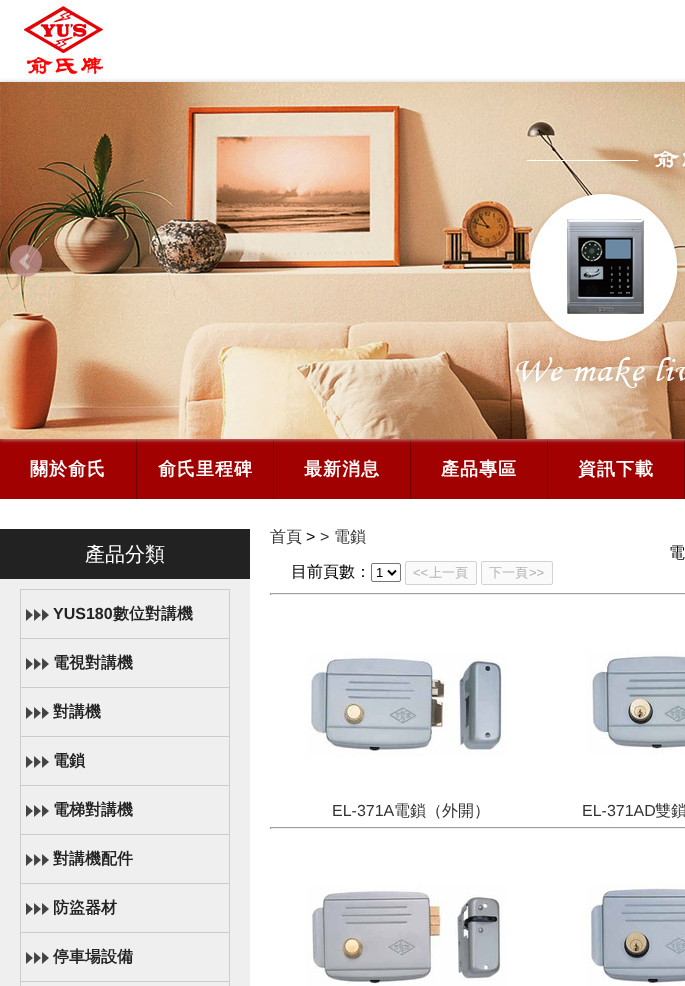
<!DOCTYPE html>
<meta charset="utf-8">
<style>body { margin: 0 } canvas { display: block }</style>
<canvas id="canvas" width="685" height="986"></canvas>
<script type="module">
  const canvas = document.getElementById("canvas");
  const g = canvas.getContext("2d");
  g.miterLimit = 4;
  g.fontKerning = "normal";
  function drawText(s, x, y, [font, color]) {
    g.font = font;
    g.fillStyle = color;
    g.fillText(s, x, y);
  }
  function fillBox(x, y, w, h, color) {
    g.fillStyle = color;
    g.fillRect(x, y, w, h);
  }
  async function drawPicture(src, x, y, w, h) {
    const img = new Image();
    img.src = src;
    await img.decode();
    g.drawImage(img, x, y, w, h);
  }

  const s1 = ["bold 18px WenQuanYi Zen Hei", "#FFFFFF"];
  const s2 = ["500 20px WenQuanYi Zen Hei", "#FFFFFF"];
  const s3 = ["bold 16px Liberation Sans", "#222222"];
  const s4 = ["bold 16px WenQuanYi Zen Hei", "#222222"];
  const s5 = ["500 16px WenQuanYi Zen Hei", "#333333"];
  const s6 = ["16px Liberation Sans", "#000000"];
  const s7 = ["16px Liberation Sans", "#333333"];
  const s8 = ["500 16px WenQuanYi Zen Hei", "#000000"];
  const s9 = ["13px Liberation Sans", "#000000"];
  const s10 = ["13px Liberation Sans", "#B4B4B4"];
  const s11 = ["500 13px WenQuanYi Zen Hei", "#B4B4B4"];

  fillBox(0, 0, 685, 986, "#FFFFFF");
  await drawPicture("pic1.png", 24, 0, 80, 80);
  fillBox(0, 439, 684, 60, "#A10101");
  fillBox(136, 439, 1, 60, "#710000");
  fillBox(273, 439, 1, 60, "#710000");
  fillBox(410, 439, 1, 60, "#710000");
  fillBox(547, 439, 1, 60, "#710000");
  fillBox(684, 439, 1, 60, "#710000");
  g.fillStyle = "#CCCCCC";
  g.filter = "blur(2.5px)";
  g.beginPath();
  g.rect(0, 82, 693, 357);
  g.fill();
  g.filter = "none";
  await drawPicture("pic2.png", 0, 82, 685, 357);
  await drawPicture("pic3.png", 10, 245, 32, 32);
  g.letterSpacing = "1px";
  drawText("關於俞氏", 30, 475, s1);
  drawText("俞氏里程碑", 158, 475, s1);
  drawText("最新消息", 304, 475, s1);
  drawText("產品專區", 441, 475, s1);
  drawText("資訊下載", 578, 475, s1);
  fillBox(0, 529, 250, 50, "#222222");
  g.letterSpacing = "0px";
  drawText("產品分類", 85, 561, s2);
  fillBox(0, 579, 250, 407, "#EFEFEF");
  fillBox(20, 589, 210, 1, "#CCCCCC");
  fillBox(20, 638, 210, 1, "#CCCCCC");
  fillBox(20, 687, 210, 1, "#CCCCCC");
  fillBox(20, 736, 210, 1, "#CCCCCC");
  fillBox(20, 785, 210, 1, "#CCCCCC");
  fillBox(20, 834, 210, 1, "#CCCCCC");
  fillBox(20, 883, 210, 1, "#CCCCCC");
  fillBox(20, 932, 210, 1, "#CCCCCC");
  fillBox(20, 981, 210, 1, "#CCCCCC");
  fillBox(229, 981, 1, 5, "#CCCCCC");
  fillBox(229, 932, 1, 50, "#CCCCCC");
  fillBox(229, 883, 1, 50, "#CCCCCC");
  fillBox(229, 834, 1, 50, "#CCCCCC");
  fillBox(229, 785, 1, 50, "#CCCCCC");
  fillBox(229, 736, 1, 50, "#CCCCCC");
  fillBox(229, 687, 1, 50, "#CCCCCC");
  fillBox(229, 638, 1, 50, "#CCCCCC");
  fillBox(229, 589, 1, 50, "#CCCCCC");
  fillBox(20, 981, 1, 5, "#CCCCCC");
  fillBox(20, 932, 1, 50, "#CCCCCC");
  fillBox(20, 883, 1, 50, "#CCCCCC");
  fillBox(20, 834, 1, 50, "#CCCCCC");
  fillBox(20, 785, 1, 50, "#CCCCCC");
  fillBox(20, 736, 1, 50, "#CCCCCC");
  fillBox(20, 687, 1, 50, "#CCCCCC");
  fillBox(20, 638, 1, 50, "#CCCCCC");
  fillBox(20, 589, 1, 50, "#CCCCCC");
  await drawPicture("pic4.png", 26, 609, 23, 12);
  drawText("YUS180", 53, 619, s3);
  drawText("數位對講機", 113, 619, s4);
  await drawPicture("pic4.png", 26, 658, 23, 12);
  drawText("電視對講機", 53, 668, s4);
  await drawPicture("pic4.png", 26, 707, 23, 12);
  drawText("對講機", 53, 717, s4);
  await drawPicture("pic4.png", 26, 756, 23, 12);
  drawText("電鎖", 53, 766, s4);
  await drawPicture("pic4.png", 26, 805, 23, 12);
  drawText("電梯對講機", 53, 815, s4);
  await drawPicture("pic4.png", 26, 854, 23, 12);
  drawText("對講機配件", 53, 864, s4);
  await drawPicture("pic4.png", 26, 903, 23, 12);
  drawText("防盜器材", 53, 913, s4);
  await drawPicture("pic4.png", 26, 952, 23, 12);
  drawText("停車場設備", 53, 962, s4);
  drawText("首頁", 270, 542, s5);
  drawText(">", 306, 542, s6);
  drawText(">", 320, 542, s7);
  drawText("電鎖", 334, 542, s5);
  drawText("電", 669, 558, s8);
  drawText("目前頁數：", 291, 577, s8);
  g.beginPath();
  g.roundRect(371.5, 563.5, 29, 18, 1.5);
  g.strokeStyle = "#767676";
  g.stroke();
  g.beginPath();
  g.moveTo(388, 570.5);
  g.lineTo(392, 574.5);
  g.lineTo(396, 570.5);
  g.strokeStyle = "#000000";
  g.lineWidth = 2;
  g.stroke();
  drawText("1", 376, 577, s9);
  g.fillStyle = "#FAFAFA";
  g.beginPath();
  g.roundRect(405.5, 561.5, 71, 23, 1.5);
  g.fill();
  g.strokeStyle = "#D2D2D2";
  g.lineWidth = 1;
  g.stroke();
  drawText("<<", 413, 577, s10);
  drawText("上一頁", 429, 577, s11);
  g.fillStyle = "#FAFAFA";
  g.beginPath();
  g.roundRect(481.5, 561.5, 71, 23, 1.5);
  g.fill();
  g.stroke();
  drawText("下一頁", 489, 577, s11);
  drawText(">>", 529, 577, s10);
  fillBox(270, 593, 415, 1, "#9F9F9F");
  fillBox(270, 594, 415, 1, "#EEEEEE");
  fillBox(270, 593, 1, 2, "#9F9F9F");
  await drawPicture("pic5.png", 306, 653, 200, 104);
  drawText("EL-371A", 332, 816, s7);
  drawText("電鎖（外開）", 394, 816, s5);
  await drawPicture("pic6.png", 586, 651, 99, 104);
  drawText("EL-371AD", 582, 816, s7);
  drawText("雙鎖", 655, 816, s5);
  fillBox(270, 827, 415, 1, "#9F9F9F");
  fillBox(270, 828, 415, 1, "#EEEEEE");
  fillBox(270, 827, 1, 2, "#9F9F9F");
  await drawPicture("pic7.png", 306, 885, 200, 101);
  await drawPicture("pic8.png", 586, 884, 99, 102);
</script>
